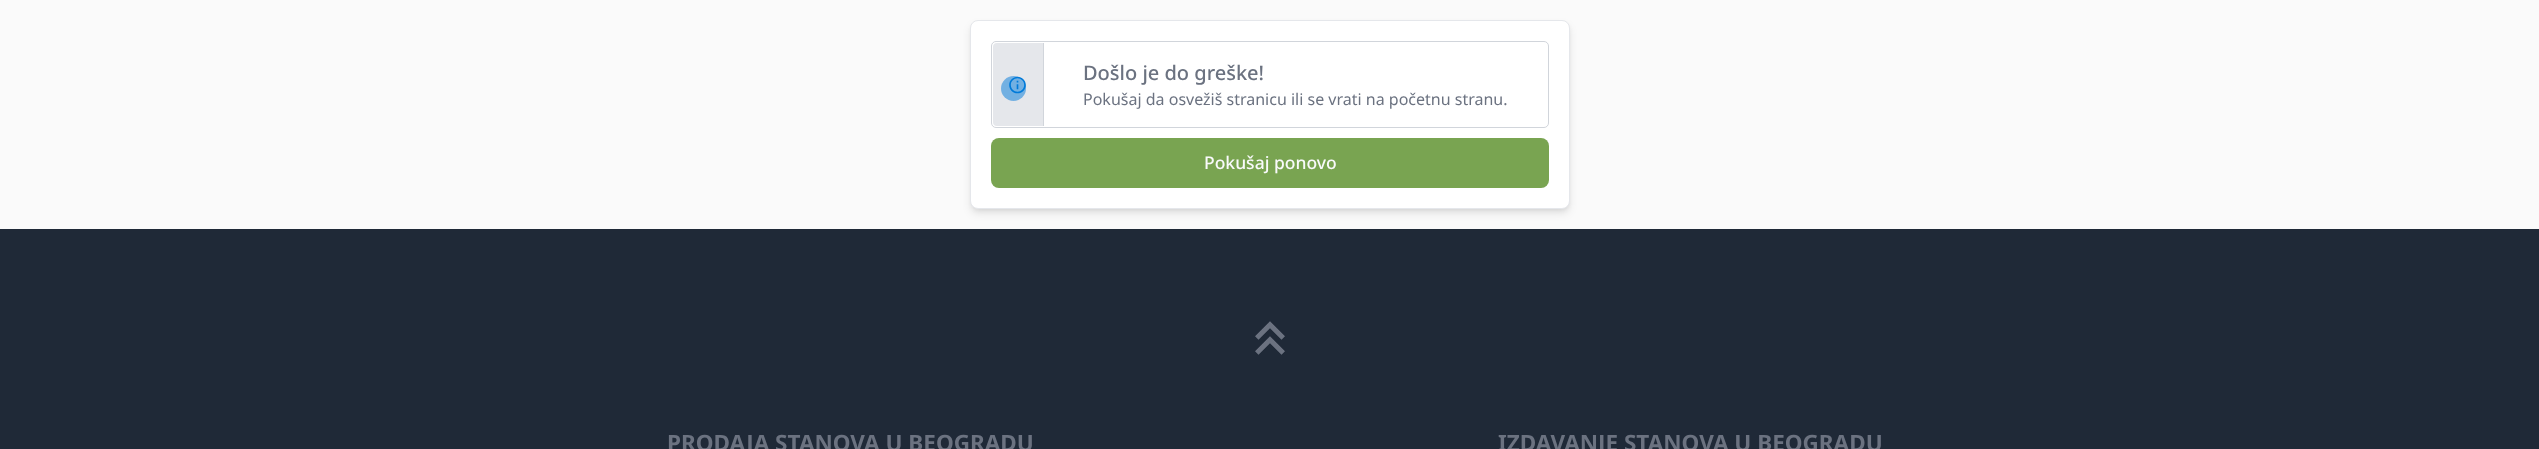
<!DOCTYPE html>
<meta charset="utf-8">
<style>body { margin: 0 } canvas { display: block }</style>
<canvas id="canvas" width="2539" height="449"></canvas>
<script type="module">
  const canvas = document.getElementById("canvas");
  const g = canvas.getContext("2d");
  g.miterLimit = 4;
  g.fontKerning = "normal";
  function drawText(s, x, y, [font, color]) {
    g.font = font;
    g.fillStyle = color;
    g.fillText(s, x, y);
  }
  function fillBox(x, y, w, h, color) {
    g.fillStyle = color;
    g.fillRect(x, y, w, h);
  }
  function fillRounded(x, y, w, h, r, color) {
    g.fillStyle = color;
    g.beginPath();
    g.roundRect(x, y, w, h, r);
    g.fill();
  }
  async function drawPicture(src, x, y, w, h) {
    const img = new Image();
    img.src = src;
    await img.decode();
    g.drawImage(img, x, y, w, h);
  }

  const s1 = ["500 20px Noto Sans", "#6B7280"];
  const s2 = ["16px Noto Sans", "#6B7280"];
  const s3 = ["500 17.5px Noto Sans", "#F9FAFB"];
  const s4 = ["bold 22.5px Noto Sans", "#6B7280"];

  fillBox(0, 0, 2539, 449, "#FAFAFA");
  g.fillStyle = "rgba(0, 0, 0, 0.1)";
  g.filter = "blur(2.5px)";
  g.beginPath();
  g.roundRect(973, 25, 595, 184, 5);
  g.fill();
  g.filter = "none";
  g.filter = "blur(4px)";
  g.beginPath();
  g.roundRect(971, 26, 598, 187, 6);
  g.fill();
  g.filter = "none";
  g.fillStyle = "#FFFFFF";
  g.beginPath();
  g.roundRect(970.5, 20.5, 599, 188, 7.5);
  g.fill();
  g.strokeStyle = "#E5E7EB";
  g.stroke();
  g.beginPath();
  g.roundRect(991.5, 41.5, 557, 86, 4.5);
  g.strokeStyle = "#D1D5DB";
  g.stroke();
  g.fillStyle = "#E5E7EB";
  g.beginPath();
  g.roundRect(993, 43, 50, 83, [4, 0, 0, 4]);
  g.fill();
  fillBox(1043, 43, 1, 83, "#D1D5DB");
  await drawPicture("pic1.png", 1009, 76, 17, 18);
  g.fillStyle = "rgba(0, 122, 217, 0.5)";
  g.beginPath();
  g.arc(1013.5, 88.5, 12.5, 0, Math.PI * 2);
  g.fill();
  drawText("Došlo je do greške!", 1083, 80, s1);
  drawText("Pokušaj da osvežiš stranicu ili se vrati na početnu stranu.", 1083, 105, s2);
  fillRounded(991, 138, 558, 50, 8, "#79A451");
  drawText("Pokušaj ponovo", 1204, 169, s3);
  fillBox(0, 229, 2539, 220, "#1F2937");
  await drawPicture("pic2.png", 1255, 321, 30, 34);
  drawText("PRODAJA STANOVA U BEOGRADU", 667, 451, s4);
  drawText("IZDAVANJE STANOVA U BEOGRADU", 1498, 451, s4);
</script>
